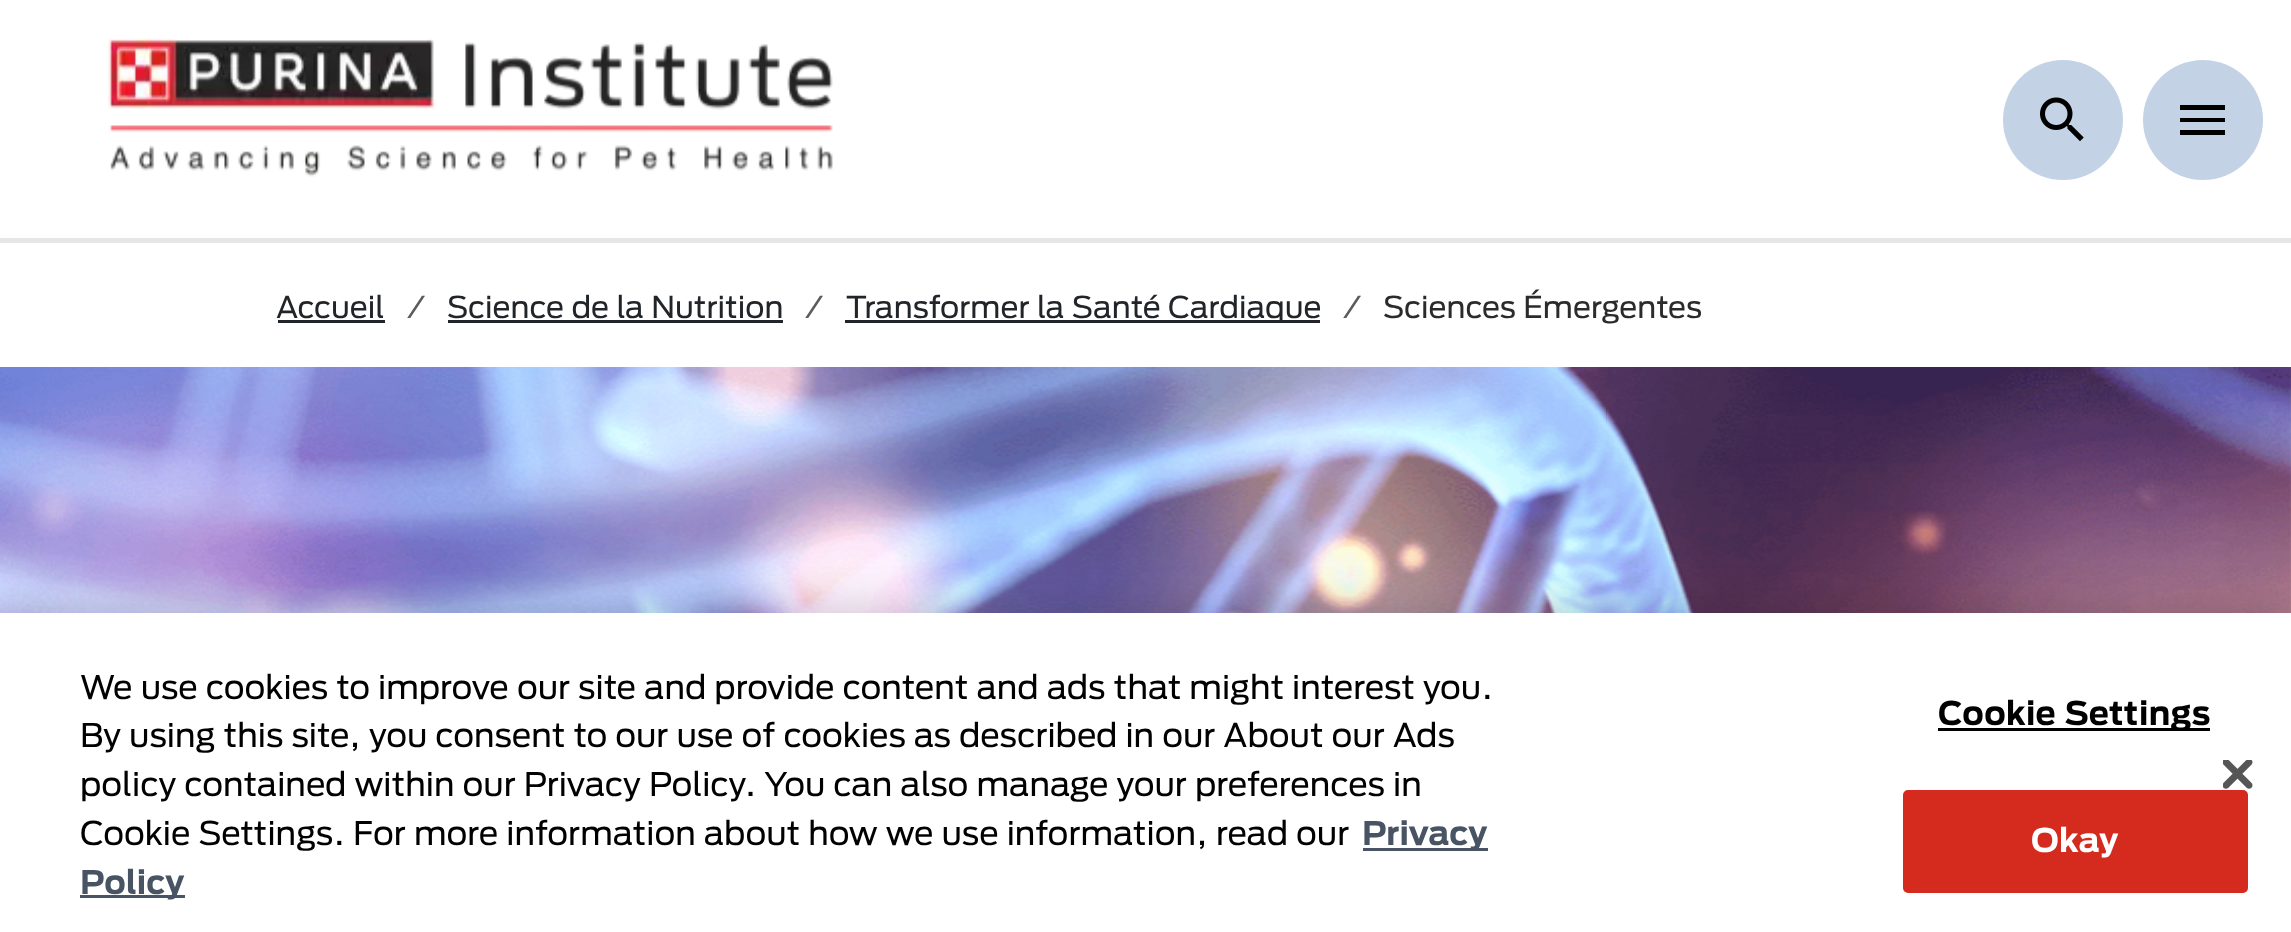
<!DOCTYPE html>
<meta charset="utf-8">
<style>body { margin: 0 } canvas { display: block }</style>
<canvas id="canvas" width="2291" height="932"></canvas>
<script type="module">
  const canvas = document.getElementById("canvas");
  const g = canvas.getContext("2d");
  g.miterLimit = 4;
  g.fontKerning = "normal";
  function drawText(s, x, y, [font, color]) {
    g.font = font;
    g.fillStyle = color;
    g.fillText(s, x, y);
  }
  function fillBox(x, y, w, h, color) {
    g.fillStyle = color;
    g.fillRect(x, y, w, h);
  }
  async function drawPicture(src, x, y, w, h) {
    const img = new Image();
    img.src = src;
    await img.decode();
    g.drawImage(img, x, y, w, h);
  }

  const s1 = ["30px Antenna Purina", "#212529"];
  const s2 = ["30px Antenna Purina", "#595C5F"];
  const s3 = ["30px Antenna Purina", "#2B2B2B"];
  const s4 = ["32.5px Antenna Purina", "#000000"];
  const s5 = ["bold 32.5px Antenna Purina", "#485463"];
  const s6 = ["bold 32.5px Antenna Purina", "#000000"];
  const s7 = ["bold 32.5px Antenna Purina", "#FFFFFF"];

  fillBox(0, 0, 2291, 932, "#FFFFFF");
  fillBox(0, 238, 2291, 5, "#E6E6E6");
  await drawPicture("pic1.png", 107, 38, 726, 139);
  g.fillStyle = "#C3D3E5";
  g.beginPath();
  g.arc(2063, 120, 60, 0, Math.PI * 2);
  g.fill();
  await drawPicture("pic2.png", 2040, 97, 44, 45);
  g.beginPath();
  g.arc(2203, 120, 60, 0, Math.PI * 2);
  g.fill();
  g.fillStyle = "#000000";
  g.beginPath();
  g.moveTo(2180, 105);
  g.lineTo(2225, 105);
  g.lineTo(2225, 110);
  g.lineTo(2180, 110);
  g.lineTo(2180, 105);
  g.moveTo(2180, 118);
  g.lineTo(2225, 118);
  g.lineTo(2225, 122);
  g.lineTo(2180, 122);
  g.lineTo(2180, 118);
  g.moveTo(2180, 130);
  g.lineTo(2225, 130);
  g.lineTo(2225, 135);
  g.lineTo(2180, 135);
  g.closePath();
  g.fill();
  drawText("Accueil", 276, 318, s1);
  fillBox(278, 320, 107, 3, "#212529");
  drawText("/", 405, 318, s2);
  drawText("Science de la Nutrition", 447, 318, s1);
  fillBox(448, 320, 335, 3, "#212529");
  drawText("/", 803, 318, s2);
  fillBox(845, 320, 475, 3, "#212529");
  drawText("Transformer la Santé Cardiaque", 846, 318, s1);
  drawText("/", 1341, 318, s2);
  drawText("Sciences Émergentes", 1383, 318, s3);
  await drawPicture("pic3.png", 0, 367, 2291, 246);
  g.fillStyle = "rgba(0, 0, 0, 0.2)";
  g.filter = "blur(22.5px)";
  g.beginPath();
  g.rect(0, 613, 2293, 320);
  g.fill();
  g.filter = "none";
  fillBox(0, 613, 2291, 319, "#FFFFFF");
  drawText("We use cookies to improve our site and provide content and ads that might interest you.", 80, 699, s4);
  drawText("By using this site, you consent to our use of cookies as described in our About our Ads", 80, 747, s4);
  drawText("policy contained within our Privacy Policy. You can also manage your preferences in", 80, 796, s4);
  drawText("Cookie Settings. For more information about how we use information, read our", 80, 845, s4);
  fillBox(1363, 848, 125, 3, "#485463");
  drawText("Privacy", 1362, 845, s5);
  fillBox(80, 895, 105, 3, "#485463");
  drawText("Policy", 80, 894, s5);
  fillBox(1938, 728, 272, 3, "#000000");
  g.letterSpacing = "0.3px";
  drawText("Cookie Settings", 1938, 725, s6);
  g.fillStyle = "#D52B1E";
  g.beginPath();
  g.roundRect(1904.5, 791.5, 342, 100, 3.5);
  g.fill();
  g.strokeStyle = "#D52B1E";
  g.lineWidth = 3;
  g.stroke();
  drawText("Okay", 2031, 852, s7);
  await drawPicture("pic4.png", 2223, 760, 30, 29);
</script>
